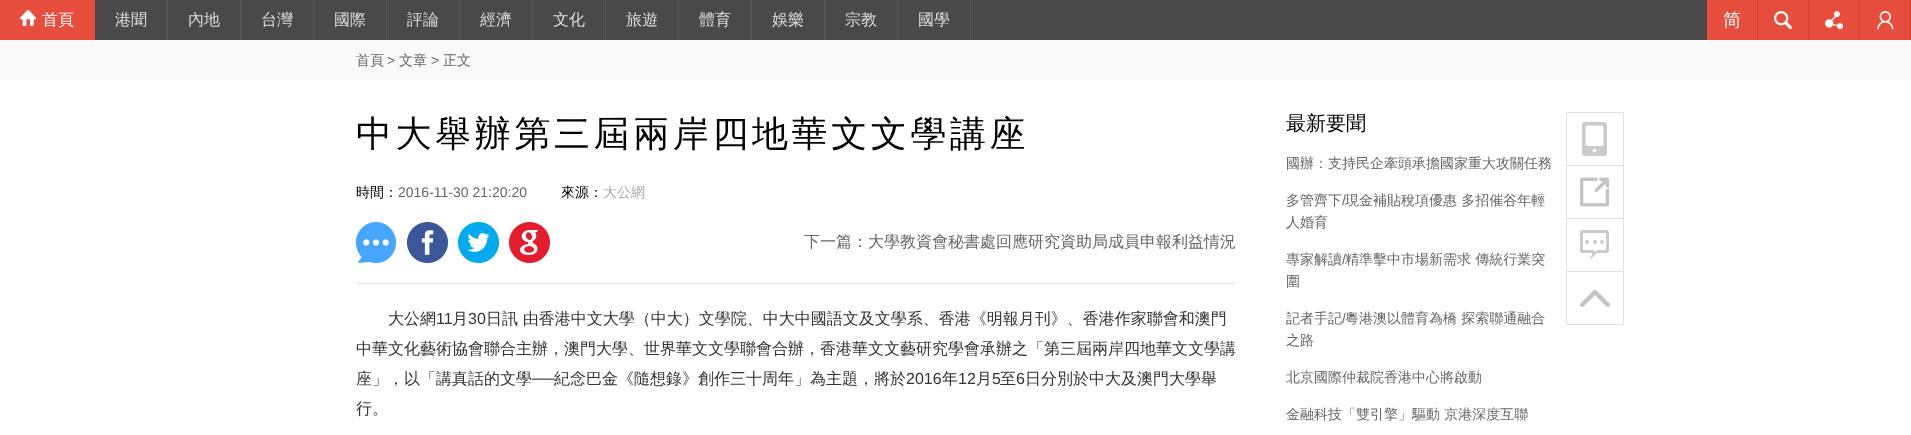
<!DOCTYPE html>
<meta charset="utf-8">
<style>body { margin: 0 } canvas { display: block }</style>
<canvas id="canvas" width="1911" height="435"></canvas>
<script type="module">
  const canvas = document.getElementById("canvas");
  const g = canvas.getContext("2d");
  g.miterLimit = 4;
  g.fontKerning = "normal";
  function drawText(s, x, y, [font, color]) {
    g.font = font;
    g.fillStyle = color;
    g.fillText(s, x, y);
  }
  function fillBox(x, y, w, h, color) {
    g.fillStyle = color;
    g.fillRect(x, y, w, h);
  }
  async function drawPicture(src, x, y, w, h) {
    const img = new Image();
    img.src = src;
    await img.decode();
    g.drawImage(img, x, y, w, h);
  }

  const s1 = ["500 16px WenQuanYi Zen Hei", "#FFFFFF"];
  const s2 = ["500 16px WenQuanYi Zen Hei", "#DDDDDD"];
  const s3 = ["500 18px WenQuanYi Zen Hei", "#FFFFFF"];
  const s4 = ["500 14px WenQuanYi Zen Hei", "#666666"];
  const s5 = ["14px Liberation Sans", "#666666"];
  const s6 = ["500 36px WenQuanYi Zen Hei", "#000000"];
  const s7 = ["500 14px WenQuanYi Zen Hei", "#000000"];
  const s8 = ["500 14px WenQuanYi Zen Hei", "#AAAAAA"];
  const s9 = ["500 16px WenQuanYi Zen Hei", "#666666"];
  const s10 = ["500 16px WenQuanYi Zen Hei", "#333333"];
  const s11 = ["16px Liberation Sans", "#333333"];
  const s12 = ["500 20px WenQuanYi Zen Hei", "#000000"];

  fillBox(0, 0, 1911, 435, "#FFFFFF");
  fillBox(95, 0, 1612, 40, "#494949");
  fillBox(0, 0, 95, 40, "#E74D3D");
  await drawPicture("pic1.png", 20, 10, 16, 16);
  drawText("首頁", 42, 25, s1);
  fillBox(167, 0, 1, 40, "#595959");
  drawText("港聞", 115, 25, s2);
  fillBox(240, 0, 1, 40, "#595959");
  drawText("內地", 188, 25, s2);
  fillBox(313, 0, 1, 40, "#595959");
  drawText("台灣", 261, 25, s2);
  fillBox(386, 0, 1, 40, "#595959");
  drawText("國際", 334, 25, s2);
  fillBox(459, 0, 1, 40, "#595959");
  drawText("評論", 407, 25, s2);
  fillBox(532, 0, 1, 40, "#595959");
  drawText("經濟", 480, 25, s2);
  fillBox(605, 0, 1, 40, "#595959");
  drawText("文化", 553, 25, s2);
  fillBox(678, 0, 1, 40, "#595959");
  drawText("旅遊", 626, 25, s2);
  fillBox(751, 0, 1, 40, "#595959");
  drawText("體育", 699, 25, s2);
  fillBox(824, 0, 1, 40, "#595959");
  drawText("娛樂", 772, 25, s2);
  fillBox(897, 0, 1, 40, "#595959");
  drawText("宗教", 845, 25, s2);
  fillBox(970, 0, 1, 40, "#595959");
  drawText("國學", 918, 25, s2);
  fillBox(1707, 0, 203, 40, "#E74D3D");
  fillBox(1757, 0, 1, 40, "#D83E2E");
  drawText("简", 1723, 26, s3);
  fillBox(1808, 0, 1, 40, "#D83E2E");
  await drawPicture("pic2.png", 1774, 11, 18, 19);
  fillBox(1859, 0, 1, 40, "#D83E2E");
  await drawPicture("pic3.png", 1825, 11, 18, 19);
  fillBox(1910, 0, 1, 40, "#D83E2E");
  await drawPicture("pic4.png", 1877, 11, 17, 19);
  fillBox(0, 40, 1911, 40, "#F9F9F9");
  drawText("首頁", 356, 65, s4);
  drawText(">", 387, 65, s5);
  drawText("文章", 399, 65, s4);
  drawText(">", 431, 65, s5);
  drawText("正文", 443, 65, s4);
  g.letterSpacing = "3.6px";
  drawText("中大舉辦第三屆兩岸四地華文文學講座", 356, 146, s6);
  g.letterSpacing = "0px";
  drawText("時間：", 356, 197, s7);
  drawText("2016-11-30 21:20:20", 398, 197, s5);
  drawText("來源：", 561, 197, s7);
  drawText("大公網", 603, 197, s8);
  fillBox(356, 283, 880, 1, "#E5E5E5");
  await drawPicture("pic5.png", 356, 222, 40, 41);
  await drawPicture("pic6.png", 407, 222, 41, 41);
  await drawPicture("pic7.png", 458, 222, 41, 41);
  await drawPicture("pic8.png", 509, 222, 41, 41);
  drawText("下一篇：大學教資會秘書處回應研究資助局成員申報利益情況", 804, 247, s9);
  drawText("大公網", 388, 324, s10);
  drawText("11", 436, 324, s11);
  drawText("月", 452, 324, s10);
  drawText("30", 468, 324, s11);
  drawText("日訊 由香港中文大學（中大）文學院、中大中國語文及文學系、香港《明報月刊》、香港作家聯會和澳門", 486, 324, s10);
  drawText("中華文化藝術協會聯合主辦，澳門大學、世界華文文學聯會合辦，香港華文文藝研究學會承辦之「第三屆兩岸四地華文文學講", 356, 354, s10);
  drawText("座」，以「講真話的文學", 356, 384, s10);
  drawText("──", 532, 384, s11);
  drawText("紀念巴金《隨想錄》創作三十周年」為主題，將於", 554, 384, s10);
  drawText("2016", 906, 384, s11);
  drawText("年", 942, 384, s10);
  drawText("12", 958, 384, s11);
  drawText("月", 976, 384, s10);
  drawText("5", 992, 384, s11);
  drawText("至", 1000, 384, s10);
  drawText("6", 1016, 384, s11);
  drawText("日分別於中大及澳門大學舉", 1025, 384, s10);
  drawText("行。", 356, 414, s10);
  drawText("最新要聞", 1286, 130, s12);
  drawText("國辦：支持民企牽頭承擔國家重大攻關任務", 1286, 168, s4);
  drawText("多管齊下", 1286, 205, s4);
  drawText("/", 1342, 205, s5);
  drawText("現金補貼稅項優惠 多招催谷年輕", 1345, 205, s4);
  drawText("人婚育", 1286, 227, s4);
  drawText("專家解讀", 1286, 264, s4);
  drawText("/", 1342, 264, s5);
  drawText("精準擊中市場新需求 傳統行業突", 1345, 264, s4);
  drawText("圍", 1286, 286, s4);
  drawText("記者手記", 1286, 323, s4);
  drawText("/", 1342, 323, s5);
  drawText("粵港澳以體育為橋 探索聯通融合", 1345, 323, s4);
  drawText("之路", 1286, 345, s4);
  drawText("北京國際仲裁院香港中心將啟動", 1286, 382, s4);
  drawText("金融科技「雙引擎」驅動 京港深度互聯", 1286, 419, s4);
  fillBox(1566, 112, 58, 1, "#E1E1E1");
  fillBox(1623, 113, 1, 106, "#E1E1E1");
  fillBox(1566, 165, 58, 1, "#E1E1E1");
  fillBox(1566, 113, 1, 53, "#E1E1E1");
  await drawPicture("pic9.png", 1582, 122, 25, 34);
  fillBox(1566, 218, 58, 1, "#E1E1E1");
  fillBox(1566, 166, 1, 53, "#E1E1E1");
  await drawPicture("pic10.png", 1580, 177, 29, 30);
  await drawPicture("pic11.png", 1580, 230, 29, 30);
  fillBox(1623, 219, 1, 106, "#E1E1E1");
  fillBox(1566, 271, 58, 1, "#E1E1E1");
  fillBox(1566, 219, 1, 53, "#E1E1E1");
  await drawPicture("pic12.png", 1580, 290, 30, 17);
  fillBox(1566, 324, 58, 1, "#E1E1E1");
  fillBox(1566, 272, 1, 53, "#E1E1E1");
</script>
